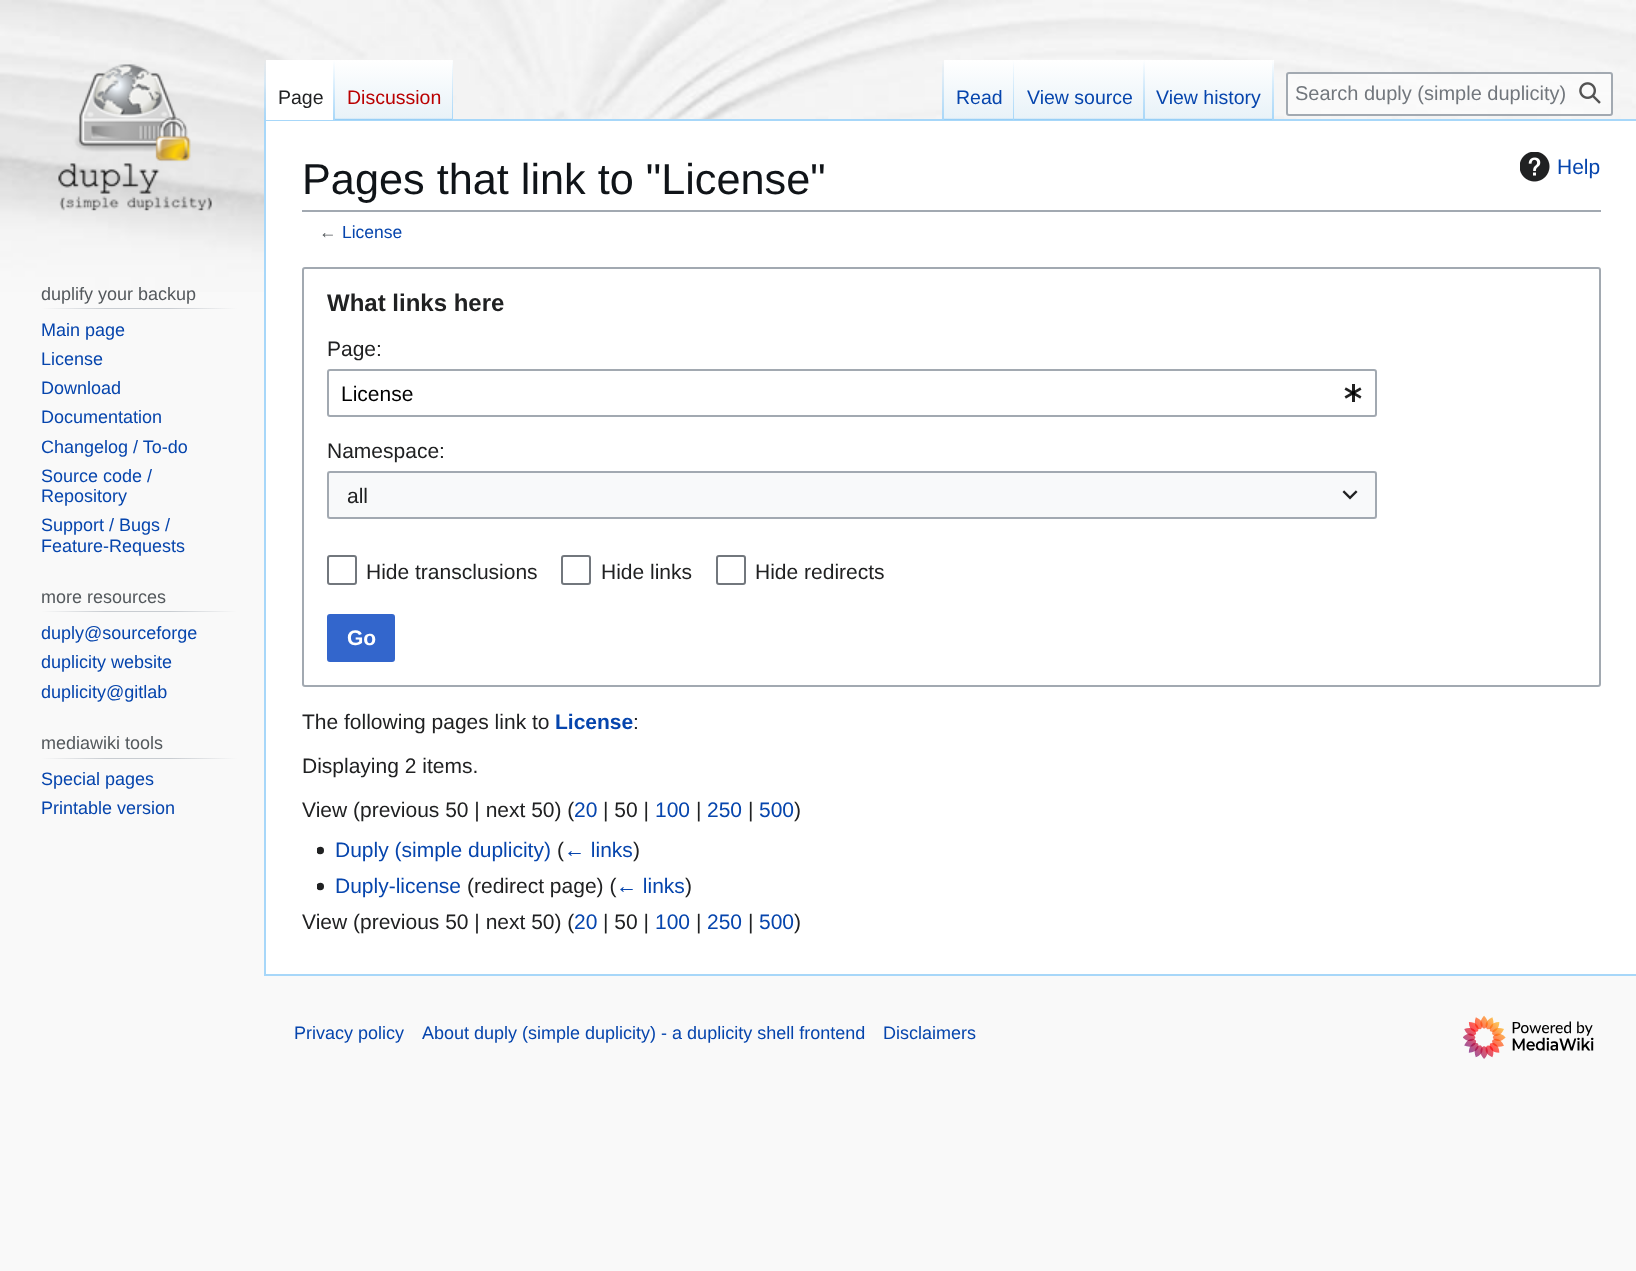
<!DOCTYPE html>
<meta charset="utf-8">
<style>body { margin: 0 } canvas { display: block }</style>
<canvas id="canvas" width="1636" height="1271"></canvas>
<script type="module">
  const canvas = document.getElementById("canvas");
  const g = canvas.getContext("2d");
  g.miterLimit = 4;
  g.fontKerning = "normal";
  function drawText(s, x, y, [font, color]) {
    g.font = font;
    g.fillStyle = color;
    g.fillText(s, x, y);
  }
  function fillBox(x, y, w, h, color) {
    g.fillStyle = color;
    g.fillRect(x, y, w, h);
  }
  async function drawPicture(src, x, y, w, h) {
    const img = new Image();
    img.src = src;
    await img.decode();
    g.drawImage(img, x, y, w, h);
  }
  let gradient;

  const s1 = ["19.5px Liberation Sans", "#202122"];
  const s2 = ["19.5px Liberation Sans", "#BA0000"];
  const s3 = ["19.5px Liberation Sans", "#0645AD"];
  const s4 = ["20px Liberation Sans", "#72777D"];
  const s5 = ["18px Liberation Sans", "#54595D"];
  const s6 = ["18px Liberation Sans", "#0645AD"];
  const s7 = ["43.25px Liberation Sans", "#101418"];
  const s8 = ["21px Liberation Sans", "#0645AD"];
  const s9 = ["17.5px Liberation Sans", "#54595D"];
  const s10 = ["17.5px Liberation Sans", "#0645AD"];
  const s11 = ["bold 24px Liberation Sans", "#202122"];
  const s12 = ["21px Liberation Sans", "#202122"];
  const s13 = ["21px Liberation Sans", "#000000"];
  const s14 = ["bold 21px Liberation Sans", "#FFFFFF"];
  const s15 = ["bold 21px Liberation Sans", "#0645AD"];

  fillBox(0, 0, 1636, 1271, "#F9F9F9");
  await drawPicture("pic1.png", 0, 0, 1636, 292);
  fillBox(264, 119, 1372, 2, "#A7D7F9");
  fillBox(264, 974, 1372, 2, "#A7D7F9");
  fillBox(264, 119, 2, 856, "#A7D7F9");
  gradient = g.createLinearGradient(265, 60, 265, 120);
  gradient.addColorStop(0, "rgba(167, 215, 249, 0)");
  gradient.addColorStop(1, "#A7D7F9");
  g.fillStyle = gradient;
  g.fillRect(264, 60, 2, 60);
  fillBox(266, 60, 67, 60, "#FFFFFF");
  gradient = g.createLinearGradient(334, 60, 334, 120);
  gradient.addColorStop(0, "#FFFFFF");
  gradient.addColorStop(1, "#A7D7F9");
  g.fillStyle = gradient;
  g.fillRect(333, 60, 2, 60);
  drawText("Page", 278, 104, s1);
  gradient = g.createLinearGradient(394, 120, 394, 60);
  gradient.addColorStop(0, "#77C1F6");
  gradient.addColorStop(0.03, "#E8F2F8");
  gradient.addColorStop(1, "#FFFFFF");
  g.fillStyle = gradient;
  g.fillRect(335, 60, 118, 60);
  gradient = g.createLinearGradient(452, 60, 452, 120);
  gradient.addColorStop(0, "rgba(167, 215, 249, 0)");
  gradient.addColorStop(1, "#A7D7F9");
  g.fillStyle = gradient;
  g.fillRect(452, 60, 1, 60);
  drawText("Discussion", 347, 104, s2);
  gradient = g.createLinearGradient(943, 60, 943, 120);
  gradient.addColorStop(0, "rgba(167, 215, 249, 0)");
  gradient.addColorStop(1, "#A7D7F9");
  g.fillStyle = gradient;
  g.fillRect(942, 60, 2, 60);
  gradient = g.createLinearGradient(979, 120, 979, 60);
  gradient.addColorStop(0, "#77C1F6");
  gradient.addColorStop(0.03, "#E8F2F8");
  gradient.addColorStop(1, "#FFFFFF");
  g.fillStyle = gradient;
  g.fillRect(944, 60, 70, 60);
  gradient = g.createLinearGradient(1013, 60, 1013, 120);
  gradient.addColorStop(0, "rgba(167, 215, 249, 0)");
  gradient.addColorStop(1, "#A7D7F9");
  g.fillStyle = gradient;
  g.fillRect(1013, 60, 1, 60);
  drawText("Read", 956, 104, s3);
  gradient = g.createLinearGradient(1079, 120, 1079, 60);
  gradient.addColorStop(0, "#77C1F6");
  gradient.addColorStop(0.03, "#E8F2F8");
  gradient.addColorStop(1, "#FFFFFF");
  g.fillStyle = gradient;
  g.fillRect(1014, 60, 131, 60);
  gradient = g.createLinearGradient(1144, 60, 1144, 120);
  gradient.addColorStop(0, "rgba(167, 215, 249, 0)");
  gradient.addColorStop(1, "#A7D7F9");
  g.fillStyle = gradient;
  g.fillRect(1143, 60, 2, 60);
  drawText("View source", 1027, 104, s3);
  gradient = g.createLinearGradient(1209, 120, 1209, 60);
  gradient.addColorStop(0, "#77C1F6");
  gradient.addColorStop(0.03, "#E8F2F8");
  gradient.addColorStop(1, "#FFFFFF");
  g.fillStyle = gradient;
  g.fillRect(1145, 60, 129, 60);
  gradient = g.createLinearGradient(1273, 60, 1273, 120);
  gradient.addColorStop(0, "rgba(167, 215, 249, 0)");
  gradient.addColorStop(1, "#A7D7F9");
  g.fillStyle = gradient;
  g.fillRect(1272, 60, 2, 60);
  drawText("View history", 1156, 104, s3);
  g.fillStyle = "rgba(255, 255, 255, 0.5)";
  g.beginPath();
  g.roundRect(1287, 73, 325, 42, 2);
  g.fill();
  g.strokeStyle = "#A2A9B1";
  g.lineWidth = 2;
  g.stroke();
  drawText("Search duply (simple duplicity)", 1295, 100, s4);
  await drawPicture("pic2.png", 1579, 82, 22, 22);
  await drawPicture("pic3.png", 58, 64, 154, 147);
  gradient = g.createLinearGradient(41, 308, 237, 308);
  gradient.addColorStop(0, "#F9F9F9");
  gradient.addColorStop(0.33, "#C8CCD1");
  gradient.addColorStop(0.66, "#C8CCD1");
  gradient.addColorStop(1, "#F9F9F9");
  g.fillStyle = gradient;
  g.fillRect(41, 308, 196, 1);
  drawText("duplify your backup", 41, 300, s5);
  drawText("Main page", 41, 336, s6);
  drawText("License", 41, 365, s6);
  drawText("Download", 41, 394, s6);
  drawText("Documentation", 41, 423, s6);
  drawText("Changelog / To-do", 41, 453, s6);
  drawText("Source code /", 41, 482, s6);
  drawText("Repository", 41, 502, s6);
  drawText("Support / Bugs /", 41, 531, s6);
  drawText("Feature-Requests", 41, 552, s6);
  gradient = g.createLinearGradient(41, 611, 237, 611);
  gradient.addColorStop(0, "#F9F9F9");
  gradient.addColorStop(0.33, "#C8CCD1");
  gradient.addColorStop(0.66, "#C8CCD1");
  gradient.addColorStop(1, "#F9F9F9");
  g.fillStyle = gradient;
  g.fillRect(41, 611, 196, 1);
  drawText("more resources", 41, 603, s5);
  drawText("duply@sourceforge", 41, 639, s6);
  drawText("duplicity website", 41, 668, s6);
  drawText("duplicity@gitlab", 41, 698, s6);
  gradient = g.createLinearGradient(41, 758, 237, 758);
  gradient.addColorStop(0, "#F9F9F9");
  gradient.addColorStop(0.33, "#C8CCD1");
  gradient.addColorStop(0.66, "#C8CCD1");
  gradient.addColorStop(1, "#F9F9F9");
  g.fillStyle = gradient;
  g.fillRect(41, 758, 196, 1);
  drawText("mediawiki tools", 41, 749, s5);
  drawText("Special pages", 41, 785, s6);
  drawText("Printable version", 41, 814, s6);
  fillBox(266, 121, 1370, 853, "#FFFFFF");
  fillBox(302, 210, 1299, 2, "#A2A9B1");
  drawText("Pages that link to \"License\"", 302, 194, s7);
  await drawPicture("pic4.png", 1520, 152, 30, 30);
  drawText("Help", 1557, 174, s8);
  drawText("←", 319, 238, s9);
  drawText("License", 342, 238, s10);
  g.beginPath();
  g.roundRect(303, 268, 1297, 418, 2);
  g.stroke();
  drawText("What links here", 327, 311, s11);
  drawText("Page:", 327, 356, s12);
  g.beginPath();
  g.roundRect(328, 370, 1048, 46, 2);
  g.stroke();
  drawText("License", 341, 401, s13);
  await drawPicture("pic5.png", 1344, 384, 18, 18);
  drawText("Namespace:", 327, 458, s12);
  fillBox(327, 471, 1050, 48, "#F8F9FA");
  g.beginPath();
  g.roundRect(328, 472, 1048, 46, 2);
  g.stroke();
  drawText("all", 347, 503, s12);
  await drawPicture("pic6.png", 1342, 490, 16, 10);
  g.beginPath();
  g.roundRect(328, 556, 28, 28, 2);
  g.strokeStyle = "#72777D";
  g.stroke();
  drawText("Hide transclusions", 366, 579, s12);
  g.beginPath();
  g.roundRect(562, 556, 28, 28, 2);
  g.stroke();
  drawText("Hide links", 601, 579, s12);
  g.beginPath();
  g.roundRect(717, 556, 28, 28, 2);
  g.stroke();
  drawText("Hide redirects", 755, 579, s12);
  g.fillStyle = "#3366CC";
  g.beginPath();
  g.roundRect(328, 615, 66, 46, 2);
  g.fill();
  g.strokeStyle = "#3366CC";
  g.stroke();
  drawText("Go", 347, 645, s14);
  drawText("The following pages link to", 302, 729, s12);
  drawText("License", 555, 729, s15);
  drawText(":", 633, 729, s12);
  drawText("Displaying 2 items.", 302, 773, s12);
  drawText("View (previous 50 | next 50) (", 302, 817, s12);
  drawText("20", 574, 817, s8);
  drawText("| 50 |", 603, 817, s12);
  drawText("100", 655, 817, s8);
  drawText("|", 696, 817, s12);
  drawText("250", 707, 817, s8);
  drawText("|", 748, 817, s12);
  drawText("500", 759, 817, s8);
  drawText(")", 794, 817, s12);
  await drawPicture("pic7.png", 317, 846, 7, 9);
  drawText("Duply (simple duplicity)", 335, 857, s8);
  drawText("(", 557, 857, s12);
  drawText("← links", 564, 857, s8);
  drawText(")", 633, 857, s12);
  await drawPicture("pic7.png", 317, 882, 7, 9);
  drawText("Duply-license", 335, 893, s8);
  drawText("(redirect page) (", 467, 893, s12);
  drawText("← links", 616, 893, s8);
  drawText(")", 685, 893, s12);
  drawText("View (previous 50 | next 50) (", 302, 929, s12);
  drawText("20", 574, 929, s8);
  drawText("| 50 |", 603, 929, s12);
  drawText("100", 655, 929, s8);
  drawText("|", 696, 929, s12);
  drawText("250", 707, 929, s8);
  drawText("|", 748, 929, s12);
  drawText("500", 759, 929, s8);
  drawText(")", 794, 929, s12);
  drawText("Privacy policy", 294, 1039, s6);
  drawText("About duply (simple duplicity) - a duplicity shell frontend", 422, 1039, s6);
  drawText("Disclaimers", 883, 1039, s6);
  await drawPicture("pic8.png", 1463, 1015, 131, 44);
</script>
